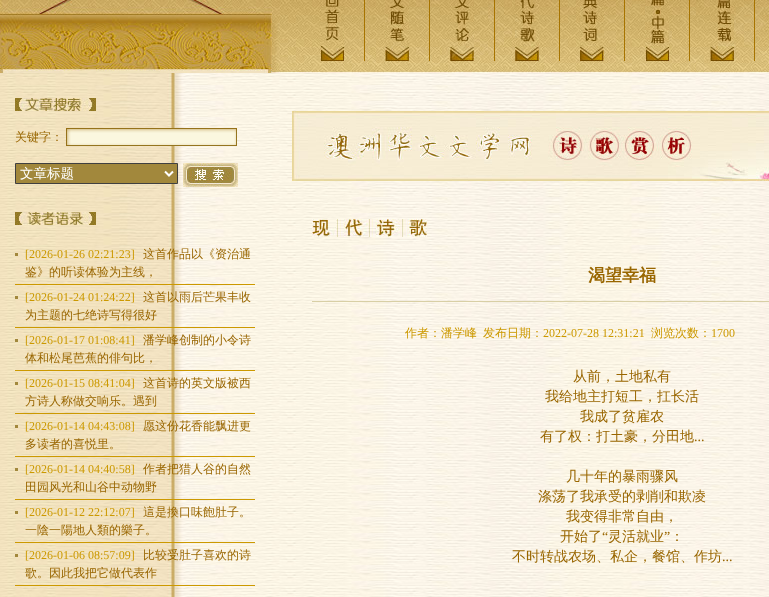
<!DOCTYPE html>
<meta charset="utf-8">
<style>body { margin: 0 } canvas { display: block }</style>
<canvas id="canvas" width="769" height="597"></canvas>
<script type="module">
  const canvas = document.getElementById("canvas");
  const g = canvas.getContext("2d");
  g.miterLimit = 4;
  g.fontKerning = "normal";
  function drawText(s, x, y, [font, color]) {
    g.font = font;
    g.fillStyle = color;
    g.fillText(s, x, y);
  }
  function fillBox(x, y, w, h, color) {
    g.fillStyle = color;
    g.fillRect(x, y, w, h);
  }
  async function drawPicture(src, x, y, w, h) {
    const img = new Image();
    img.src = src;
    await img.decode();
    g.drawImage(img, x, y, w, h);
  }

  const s1 = ["500 12px WenQuanYi Zen Hei", "#996600"];
  const s2 = ["500 13.5px WenQuanYi Zen Hei", "#FFFFFF"];
  const s3 = ["12px Liberation Serif", "#CC9900"];
  const s4 = ["bold 17px WenQuanYi Zen Hei", "#996600"];
  const s5 = ["500 12px WenQuanYi Zen Hei", "#CC9900"];
  const s6 = ["500 14px WenQuanYi Zen Hei", "#996600"];
  const s7 = ["14px Liberation Serif", "#996600"];

  fillBox(0, 0, 769, 597, "#FFFFFF");
  await drawPicture("pic1.png", 0, 73, 769, 524);
  await drawPicture("pic2.png", 0, 0, 769, 73);
  await drawPicture("pic3.png", 320, 0, 24, 61);
  fillBox(364, 0, 1, 61, "#A77400");
  await drawPicture("pic4.png", 385, 0, 24, 61);
  fillBox(429, 0, 1, 61, "#A77400");
  await drawPicture("pic5.png", 450, 0, 24, 61);
  fillBox(494, 0, 1, 61, "#A77400");
  await drawPicture("pic6.png", 515, 0, 24, 61);
  fillBox(559, 0, 1, 61, "#A77400");
  await drawPicture("pic7.png", 580, 0, 24, 61);
  fillBox(624, 0, 1, 61, "#A77400");
  await drawPicture("pic8.png", 645, 0, 24, 61);
  fillBox(689, 0, 1, 61, "#A77400");
  await drawPicture("pic9.png", 710, 0, 24, 61);
  fillBox(754, 0, 1, 61, "#A77400");
  await drawPicture("pic10.png", 15, 98, 81, 13);
  drawText("关键字：", 15, 141, s1);
  await drawPicture("pic11.png", 66, 128, 171, 18);
  g.fillStyle = "#A2883C";
  g.beginPath();
  g.rect(15.5, 163.5, 162, 20);
  g.fill();
  g.strokeStyle = "#404040";
  g.stroke();
  g.beginPath();
  g.moveTo(165, 171.5);
  g.lineTo(169, 175.5);
  g.lineTo(173, 171.5);
  g.strokeStyle = "#FFFFFF";
  g.lineWidth = 2;
  g.stroke();
  drawText("文章标题", 20, 178, s2);
  await drawPicture("pic12.png", 183, 163, 55, 24);
  await drawPicture("pic13.png", 15, 212, 81, 13);
  fillBox(15, 253, 3, 3, "#A2883C");
  fillBox(15, 284, 240, 1, "#CC9900");
  drawText("[2026-01-26 02:21:23]", 25, 258, s3);
  drawText("这首作品以《资治通", 143, 258, s1);
  drawText("鉴》的听读体验为主线，", 25, 276, s1);
  fillBox(15, 296, 3, 3, "#A2883C");
  fillBox(15, 327, 240, 1, "#CC9900");
  drawText("[2026-01-24 01:24:22]", 25, 301, s3);
  drawText("这首以雨后芒果丰收", 143, 301, s1);
  drawText("为主题的七绝诗写得很好", 25, 319, s1);
  fillBox(15, 339, 3, 3, "#A2883C");
  fillBox(15, 370, 240, 1, "#CC9900");
  drawText("[2026-01-17 01:08:41]", 25, 344, s3);
  drawText("潘学峰创制的小令诗", 143, 344, s1);
  drawText("体和松尾芭蕉的俳句比，", 25, 362, s1);
  fillBox(15, 382, 3, 3, "#A2883C");
  fillBox(15, 413, 240, 1, "#CC9900");
  drawText("[2026-01-15 08:41:04]", 25, 387, s3);
  drawText("这首诗的英文版被西", 143, 387, s1);
  drawText("方诗人称做交响乐。遇到", 25, 405, s1);
  fillBox(15, 425, 3, 3, "#A2883C");
  fillBox(15, 456, 240, 1, "#CC9900");
  drawText("[2026-01-14 04:43:08]", 25, 430, s3);
  drawText("愿这份花香能飘进更", 143, 430, s1);
  drawText("多读者的喜悦里。", 25, 448, s1);
  fillBox(15, 468, 3, 3, "#A2883C");
  fillBox(15, 499, 240, 1, "#CC9900");
  drawText("[2026-01-14 04:40:58]", 25, 473, s3);
  drawText("作者把猎人谷的自然", 143, 473, s1);
  drawText("田园风光和山谷中动物野", 25, 491, s1);
  fillBox(15, 511, 3, 3, "#A2883C");
  fillBox(15, 542, 240, 1, "#CC9900");
  drawText("[2026-01-12 22:12:07]", 25, 516, s3);
  drawText("這是換口味飽肚子。", 143, 516, s1);
  drawText("一陰一陽地人類的樂子。", 25, 534, s1);
  fillBox(15, 554, 3, 3, "#A2883C");
  fillBox(15, 585, 240, 1, "#CC9900");
  drawText("[2026-01-06 08:57:09]", 25, 559, s3);
  drawText("比较受肚子喜欢的诗", 143, 559, s1);
  drawText("歌。因此我把它做代表作", 25, 577, s1);
  await drawPicture("pic14.png", 292, 111, 477, 70);
  await drawPicture("pic15.png", 312, 219, 115, 18);
  fillBox(312, 301, 457, 1, "#D8CFA5");
  drawText("渴望幸福", 588, 281, s4);
  drawText("作者：潘学峰", 405, 337, s5);
  drawText("发布日期：", 483, 337, s5);
  drawText("2022-07-28 12:31:21", 543, 337, s3);
  drawText("浏览次数：", 651, 337, s5);
  drawText("1700", 711, 337, s3);
  drawText("从前，土地私有", 573, 381, s6);
  drawText("我给地主打短工，扛长活", 545, 401, s6);
  drawText("我成了贫雇农", 580, 421, s6);
  drawText("有了权：打土豪，分田地", 540, 441, s6);
  drawText("...", 694, 441, s7);
  drawText("几十年的暴雨骤风", 566, 481, s6);
  drawText("涤荡了我承受的剥削和欺凌", 538, 501, s6);
  drawText("我变得非常自由，", 566, 521, s6);
  drawText("开始了", 560, 541, s6);
  drawText("“", 602, 541, s7);
  drawText("灵活就业", 608, 541, s6);
  drawText("”", 664, 541, s7);
  drawText("：", 670, 541, s6);
  drawText("不时转战农场、私企，餐馆、作坊", 512, 561, s6);
  drawText("...", 722, 561, s7);
</script>
